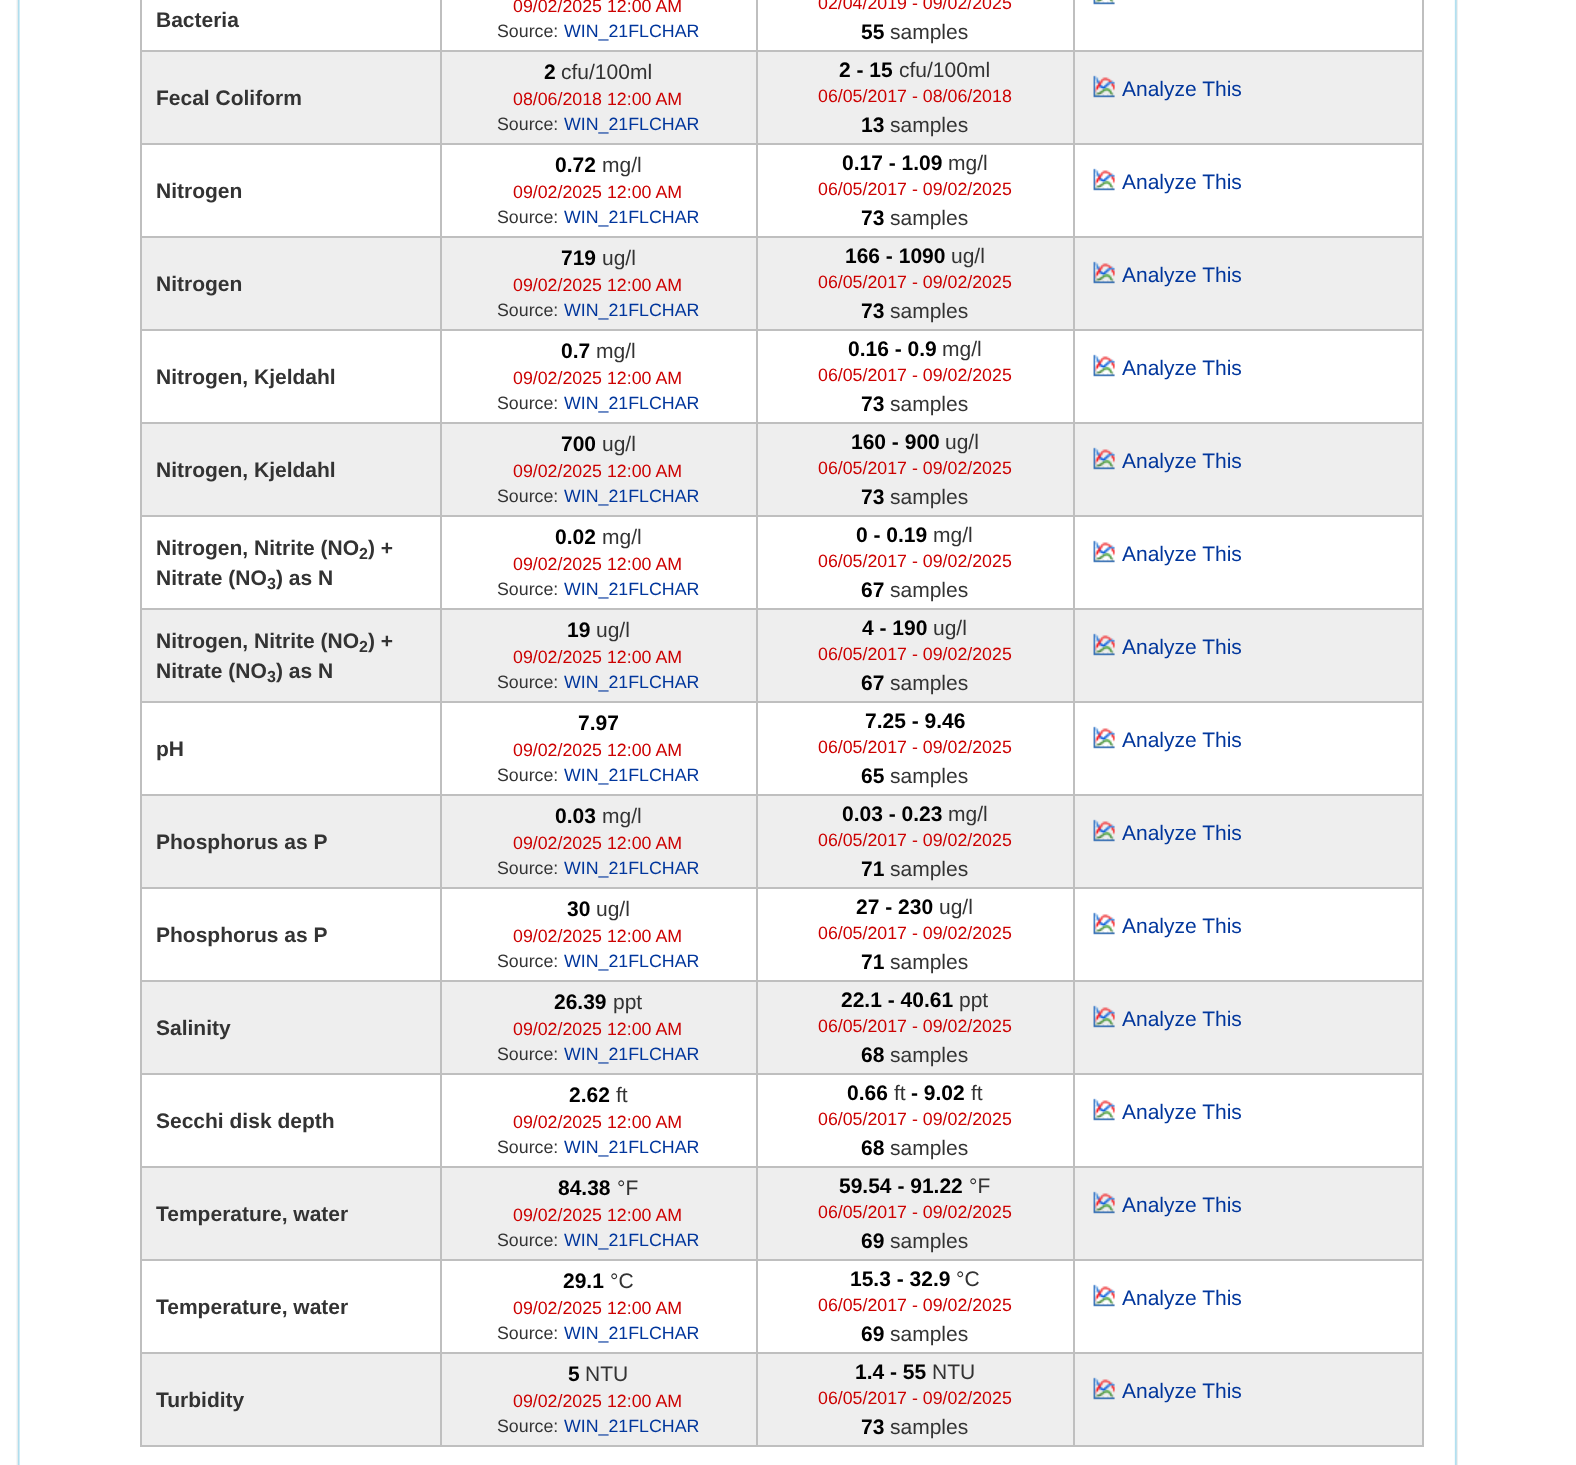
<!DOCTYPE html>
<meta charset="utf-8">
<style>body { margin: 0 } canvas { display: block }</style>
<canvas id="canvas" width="1576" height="1465"></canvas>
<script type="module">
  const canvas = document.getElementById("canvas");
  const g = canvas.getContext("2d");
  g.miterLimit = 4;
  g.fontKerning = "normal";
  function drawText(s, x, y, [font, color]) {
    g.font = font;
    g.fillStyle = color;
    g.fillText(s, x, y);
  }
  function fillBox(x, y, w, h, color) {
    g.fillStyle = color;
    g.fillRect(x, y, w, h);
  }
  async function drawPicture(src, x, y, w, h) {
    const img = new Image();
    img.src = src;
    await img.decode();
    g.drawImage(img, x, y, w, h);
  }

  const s1 = ["bold 21px Liberation Sans", "#333333"];
  const s2 = ["17.8px Liberation Sans", "#CC0000"];
  const s3 = ["17.8px Liberation Sans", "#333333"];
  const s4 = ["17.8px Liberation Sans", "#01369C"];
  const s5 = ["bold 21px Liberation Sans", "#000000"];
  const s6 = ["21px Liberation Sans", "#333333"];
  const s7 = ["21px Liberation Sans", "#01369C"];
  const s8 = ["bold 16px Liberation Sans", "#333333"];

  fillBox(0, 0, 1576, 1465, "#FFFFFF");
  await drawPicture("pic1.png", 16, 0, 4, 1465);
  await drawPicture("pic2.png", 1454, 0, 4, 1465);
  fillBox(140, 0, 2, 1446, "#BFBFBF");
  fillBox(142, 52, 1280, 91, "#EEEEEE");
  fillBox(142, 238, 1280, 91, "#EEEEEE");
  fillBox(142, 424, 1280, 91, "#EEEEEE");
  fillBox(142, 610, 1280, 91, "#EEEEEE");
  fillBox(142, 796, 1280, 91, "#EEEEEE");
  fillBox(142, 982, 1280, 91, "#EEEEEE");
  fillBox(142, 1168, 1280, 91, "#EEEEEE");
  fillBox(142, 1354, 1280, 91, "#EEEEEE");
  fillBox(1422, 0, 2, 1446, "#BFBFBF");
  fillBox(1073, 1445, 351, 2, "#BFBFBF");
  fillBox(1073, 1352, 2, 94, "#BFBFBF");
  fillBox(1073, 1352, 351, 2, "#BFBFBF");
  fillBox(1073, 1259, 2, 94, "#BFBFBF");
  fillBox(1073, 1259, 351, 2, "#BFBFBF");
  fillBox(1073, 1166, 2, 94, "#BFBFBF");
  fillBox(1073, 1166, 351, 2, "#BFBFBF");
  fillBox(1073, 1073, 2, 94, "#BFBFBF");
  fillBox(1073, 1073, 351, 2, "#BFBFBF");
  fillBox(1073, 980, 2, 94, "#BFBFBF");
  fillBox(1073, 980, 351, 2, "#BFBFBF");
  fillBox(1073, 887, 2, 94, "#BFBFBF");
  fillBox(1073, 887, 351, 2, "#BFBFBF");
  fillBox(1073, 794, 2, 94, "#BFBFBF");
  fillBox(1073, 794, 351, 2, "#BFBFBF");
  fillBox(1073, 701, 2, 94, "#BFBFBF");
  fillBox(1073, 701, 351, 2, "#BFBFBF");
  fillBox(1073, 608, 2, 94, "#BFBFBF");
  fillBox(1073, 608, 351, 2, "#BFBFBF");
  fillBox(1073, 515, 2, 94, "#BFBFBF");
  fillBox(1073, 515, 351, 2, "#BFBFBF");
  fillBox(1073, 422, 2, 94, "#BFBFBF");
  fillBox(1073, 422, 351, 2, "#BFBFBF");
  fillBox(1073, 329, 2, 94, "#BFBFBF");
  fillBox(1073, 329, 351, 2, "#BFBFBF");
  fillBox(1073, 236, 2, 94, "#BFBFBF");
  fillBox(1073, 236, 351, 2, "#BFBFBF");
  fillBox(1073, 143, 2, 94, "#BFBFBF");
  fillBox(1073, 143, 351, 2, "#BFBFBF");
  fillBox(1073, 50, 2, 94, "#BFBFBF");
  fillBox(1073, 50, 351, 2, "#BFBFBF");
  fillBox(1073, 0, 2, 51, "#BFBFBF");
  fillBox(756, 1445, 318, 2, "#BFBFBF");
  fillBox(756, 1352, 2, 94, "#BFBFBF");
  fillBox(756, 1352, 318, 2, "#BFBFBF");
  fillBox(756, 1259, 2, 94, "#BFBFBF");
  fillBox(756, 1259, 318, 2, "#BFBFBF");
  fillBox(756, 1166, 2, 94, "#BFBFBF");
  fillBox(756, 1166, 318, 2, "#BFBFBF");
  fillBox(756, 1073, 2, 94, "#BFBFBF");
  fillBox(756, 1073, 318, 2, "#BFBFBF");
  fillBox(756, 980, 2, 94, "#BFBFBF");
  fillBox(756, 980, 318, 2, "#BFBFBF");
  fillBox(756, 887, 2, 94, "#BFBFBF");
  fillBox(756, 887, 318, 2, "#BFBFBF");
  fillBox(756, 794, 2, 94, "#BFBFBF");
  fillBox(756, 794, 318, 2, "#BFBFBF");
  fillBox(756, 701, 2, 94, "#BFBFBF");
  fillBox(756, 701, 318, 2, "#BFBFBF");
  fillBox(756, 608, 2, 94, "#BFBFBF");
  fillBox(756, 608, 318, 2, "#BFBFBF");
  fillBox(756, 515, 2, 94, "#BFBFBF");
  fillBox(756, 515, 318, 2, "#BFBFBF");
  fillBox(756, 422, 2, 94, "#BFBFBF");
  fillBox(756, 422, 318, 2, "#BFBFBF");
  fillBox(756, 329, 2, 94, "#BFBFBF");
  fillBox(756, 329, 318, 2, "#BFBFBF");
  fillBox(756, 236, 2, 94, "#BFBFBF");
  fillBox(756, 236, 318, 2, "#BFBFBF");
  fillBox(756, 143, 2, 94, "#BFBFBF");
  fillBox(756, 143, 318, 2, "#BFBFBF");
  fillBox(756, 50, 2, 94, "#BFBFBF");
  fillBox(756, 50, 318, 2, "#BFBFBF");
  fillBox(756, 0, 2, 51, "#BFBFBF");
  fillBox(440, 1445, 318, 2, "#BFBFBF");
  fillBox(440, 1352, 2, 94, "#BFBFBF");
  fillBox(440, 1352, 318, 2, "#BFBFBF");
  fillBox(440, 1259, 2, 94, "#BFBFBF");
  fillBox(440, 1259, 318, 2, "#BFBFBF");
  fillBox(440, 1166, 2, 94, "#BFBFBF");
  fillBox(440, 1166, 318, 2, "#BFBFBF");
  fillBox(440, 1073, 2, 94, "#BFBFBF");
  fillBox(440, 1073, 318, 2, "#BFBFBF");
  fillBox(440, 980, 2, 94, "#BFBFBF");
  fillBox(440, 980, 318, 2, "#BFBFBF");
  fillBox(440, 887, 2, 94, "#BFBFBF");
  fillBox(440, 887, 318, 2, "#BFBFBF");
  fillBox(440, 794, 2, 94, "#BFBFBF");
  fillBox(440, 794, 318, 2, "#BFBFBF");
  fillBox(440, 701, 2, 94, "#BFBFBF");
  fillBox(440, 701, 318, 2, "#BFBFBF");
  fillBox(440, 608, 2, 94, "#BFBFBF");
  fillBox(440, 608, 318, 2, "#BFBFBF");
  fillBox(440, 515, 2, 94, "#BFBFBF");
  fillBox(440, 515, 318, 2, "#BFBFBF");
  fillBox(440, 422, 2, 94, "#BFBFBF");
  fillBox(440, 422, 318, 2, "#BFBFBF");
  fillBox(440, 329, 2, 94, "#BFBFBF");
  fillBox(440, 329, 318, 2, "#BFBFBF");
  fillBox(440, 236, 2, 94, "#BFBFBF");
  fillBox(440, 236, 318, 2, "#BFBFBF");
  fillBox(440, 143, 2, 94, "#BFBFBF");
  fillBox(440, 143, 318, 2, "#BFBFBF");
  fillBox(440, 50, 2, 94, "#BFBFBF");
  fillBox(440, 50, 318, 2, "#BFBFBF");
  fillBox(440, 0, 2, 51, "#BFBFBF");
  fillBox(140, 50, 301, 2, "#BFBFBF");
  drawText("Bacteria", 156, 27, s1);
  drawText("09/02/2025 12:00 AM", 513, 12, s2);
  drawText("Source:", 497, 37, s3);
  drawText("WIN_21FLCHAR", 564, 37, s4);
  drawText("02/04/2019 - 09/02/2025", 818, 9, s2);
  drawText("55", 861, 39, s5);
  drawText("samples", 890, 39, s6);
  await drawPicture("pic3.png", 1093, 0, 22, 5);
  fillBox(140, 143, 301, 2, "#BFBFBF");
  drawText("Fecal Coliform", 156, 105, s1);
  drawText("2", 544, 79, s5);
  drawText("cfu/100ml", 561, 79, s6);
  drawText("08/06/2018 12:00 AM", 513, 105, s2);
  drawText("Source:", 497, 130, s3);
  drawText("WIN_21FLCHAR", 564, 130, s4);
  drawText("2 - 15", 839, 77, s5);
  drawText("cfu/100ml", 899, 77, s6);
  drawText("06/05/2017 - 08/06/2018", 818, 102, s2);
  drawText("13", 861, 132, s5);
  drawText("samples", 890, 132, s6);
  await drawPicture("pic4.png", 1093, 75, 22, 23);
  drawText("Analyze This", 1122, 96, s7);
  fillBox(140, 236, 301, 2, "#BFBFBF");
  drawText("Nitrogen", 156, 198, s1);
  drawText("0.72", 555, 172, s5);
  drawText("mg/l", 602, 172, s6);
  drawText("09/02/2025 12:00 AM", 513, 198, s2);
  drawText("Source:", 497, 223, s3);
  drawText("WIN_21FLCHAR", 564, 223, s4);
  drawText("0.17 - 1.09", 842, 170, s5);
  drawText("mg/l", 948, 170, s6);
  drawText("06/05/2017 - 09/02/2025", 818, 195, s2);
  drawText("73", 861, 225, s5);
  drawText("samples", 890, 225, s6);
  await drawPicture("pic5.png", 1093, 168, 22, 23);
  drawText("Analyze This", 1122, 189, s7);
  fillBox(140, 329, 301, 2, "#BFBFBF");
  drawText("Nitrogen", 156, 291, s1);
  drawText("719", 561, 265, s5);
  drawText("ug/l", 602, 265, s6);
  drawText("09/02/2025 12:00 AM", 513, 291, s2);
  drawText("Source:", 497, 316, s3);
  drawText("WIN_21FLCHAR", 564, 316, s4);
  drawText("166 - 1090", 845, 263, s5);
  drawText("ug/l", 951, 263, s6);
  drawText("06/05/2017 - 09/02/2025", 818, 288, s2);
  drawText("73", 861, 318, s5);
  drawText("samples", 890, 318, s6);
  await drawPicture("pic4.png", 1093, 261, 22, 23);
  drawText("Analyze This", 1122, 282, s7);
  fillBox(140, 422, 301, 2, "#BFBFBF");
  drawText("Nitrogen, Kjeldahl", 156, 384, s1);
  drawText("0.7", 561, 358, s5);
  drawText("mg/l", 596, 358, s6);
  drawText("09/02/2025 12:00 AM", 513, 384, s2);
  drawText("Source:", 497, 409, s3);
  drawText("WIN_21FLCHAR", 564, 409, s4);
  drawText("0.16 - 0.9", 848, 356, s5);
  drawText("mg/l", 942, 356, s6);
  drawText("06/05/2017 - 09/02/2025", 818, 381, s2);
  drawText("73", 861, 411, s5);
  drawText("samples", 890, 411, s6);
  await drawPicture("pic5.png", 1093, 354, 22, 23);
  drawText("Analyze This", 1122, 375, s7);
  fillBox(140, 515, 301, 2, "#BFBFBF");
  drawText("Nitrogen, Kjeldahl", 156, 477, s1);
  drawText("700", 561, 451, s5);
  drawText("ug/l", 602, 451, s6);
  drawText("09/02/2025 12:00 AM", 513, 477, s2);
  drawText("Source:", 497, 502, s3);
  drawText("WIN_21FLCHAR", 564, 502, s4);
  drawText("160 - 900", 851, 449, s5);
  drawText("ug/l", 945, 449, s6);
  drawText("06/05/2017 - 09/02/2025", 818, 474, s2);
  drawText("73", 861, 504, s5);
  drawText("samples", 890, 504, s6);
  await drawPicture("pic4.png", 1093, 447, 22, 23);
  drawText("Analyze This", 1122, 468, s7);
  fillBox(140, 608, 301, 2, "#BFBFBF");
  drawText("Nitrogen, Nitrite (NO", 156, 555, s1);
  drawText(") +", 368, 555, s1);
  drawText("2", 359, 559, s8);
  drawText("Nitrate (NO", 156, 585, s1);
  drawText(") as N", 276, 585, s1);
  drawText("3", 267, 589, s8);
  drawText("0.02", 555, 544, s5);
  drawText("mg/l", 602, 544, s6);
  drawText("09/02/2025 12:00 AM", 513, 570, s2);
  drawText("Source:", 497, 595, s3);
  drawText("WIN_21FLCHAR", 564, 595, s4);
  drawText("0 - 0.19", 856, 542, s5);
  drawText("mg/l", 933, 542, s6);
  drawText("06/05/2017 - 09/02/2025", 818, 567, s2);
  drawText("67", 861, 597, s5);
  drawText("samples", 890, 597, s6);
  await drawPicture("pic5.png", 1093, 540, 22, 23);
  drawText("Analyze This", 1122, 561, s7);
  fillBox(140, 701, 301, 2, "#BFBFBF");
  drawText("Nitrogen, Nitrite (NO", 156, 648, s1);
  drawText(") +", 368, 648, s1);
  drawText("2", 359, 652, s8);
  drawText("Nitrate (NO", 156, 678, s1);
  drawText(") as N", 276, 678, s1);
  drawText("3", 267, 682, s8);
  drawText("19", 567, 637, s5);
  drawText("ug/l", 596, 637, s6);
  drawText("09/02/2025 12:00 AM", 513, 663, s2);
  drawText("Source:", 497, 688, s3);
  drawText("WIN_21FLCHAR", 564, 688, s4);
  drawText("4 - 190", 862, 635, s5);
  drawText("ug/l", 933, 635, s6);
  drawText("06/05/2017 - 09/02/2025", 818, 660, s2);
  drawText("67", 861, 690, s5);
  drawText("samples", 890, 690, s6);
  await drawPicture("pic4.png", 1093, 633, 22, 23);
  drawText("Analyze This", 1122, 654, s7);
  fillBox(140, 794, 301, 2, "#BFBFBF");
  drawText("pH", 156, 756, s1);
  drawText("7.97", 578, 730, s5);
  drawText("09/02/2025 12:00 AM", 513, 756, s2);
  drawText("Source:", 497, 781, s3);
  drawText("WIN_21FLCHAR", 564, 781, s4);
  drawText("7.25 - 9.46", 865, 728, s5);
  drawText("06/05/2017 - 09/02/2025", 818, 753, s2);
  drawText("65", 861, 783, s5);
  drawText("samples", 890, 783, s6);
  await drawPicture("pic5.png", 1093, 726, 22, 23);
  drawText("Analyze This", 1122, 747, s7);
  fillBox(140, 887, 301, 2, "#BFBFBF");
  drawText("Phosphorus as P", 156, 849, s1);
  drawText("0.03", 555, 823, s5);
  drawText("mg/l", 602, 823, s6);
  drawText("09/02/2025 12:00 AM", 513, 849, s2);
  drawText("Source:", 497, 874, s3);
  drawText("WIN_21FLCHAR", 564, 874, s4);
  drawText("0.03 - 0.23", 842, 821, s5);
  drawText("mg/l", 948, 821, s6);
  drawText("06/05/2017 - 09/02/2025", 818, 846, s2);
  drawText("71", 861, 876, s5);
  drawText("samples", 890, 876, s6);
  await drawPicture("pic4.png", 1093, 819, 22, 23);
  drawText("Analyze This", 1122, 840, s7);
  fillBox(140, 980, 301, 2, "#BFBFBF");
  drawText("Phosphorus as P", 156, 942, s1);
  drawText("30", 567, 916, s5);
  drawText("ug/l", 596, 916, s6);
  drawText("09/02/2025 12:00 AM", 513, 942, s2);
  drawText("Source:", 497, 967, s3);
  drawText("WIN_21FLCHAR", 564, 967, s4);
  drawText("27 - 230", 856, 914, s5);
  drawText("ug/l", 939, 914, s6);
  drawText("06/05/2017 - 09/02/2025", 818, 939, s2);
  drawText("71", 861, 969, s5);
  drawText("samples", 890, 969, s6);
  await drawPicture("pic5.png", 1093, 912, 22, 23);
  drawText("Analyze This", 1122, 933, s7);
  fillBox(140, 1073, 301, 2, "#BFBFBF");
  drawText("Salinity", 156, 1035, s1);
  drawText("26.39", 554, 1009, s5);
  drawText("ppt", 613, 1009, s6);
  drawText("09/02/2025 12:00 AM", 513, 1035, s2);
  drawText("Source:", 497, 1060, s3);
  drawText("WIN_21FLCHAR", 564, 1060, s4);
  drawText("22.1 - 40.61", 841, 1007, s5);
  drawText("ppt", 959, 1007, s6);
  drawText("06/05/2017 - 09/02/2025", 818, 1032, s2);
  drawText("68", 861, 1062, s5);
  drawText("samples", 890, 1062, s6);
  await drawPicture("pic4.png", 1093, 1005, 22, 23);
  drawText("Analyze This", 1122, 1026, s7);
  fillBox(140, 1166, 301, 2, "#BFBFBF");
  drawText("Secchi disk depth", 156, 1128, s1);
  drawText("2.62", 569, 1102, s5);
  drawText("ft", 616, 1102, s6);
  drawText("09/02/2025 12:00 AM", 513, 1128, s2);
  drawText("Source:", 497, 1153, s3);
  drawText("WIN_21FLCHAR", 564, 1153, s4);
  drawText("0.66", 847, 1100, s5);
  drawText("ft", 894, 1100, s6);
  drawText("- 9.02", 911, 1100, s5);
  drawText("ft", 971, 1100, s6);
  drawText("06/05/2017 - 09/02/2025", 818, 1125, s2);
  drawText("68", 861, 1155, s5);
  drawText("samples", 890, 1155, s6);
  await drawPicture("pic5.png", 1093, 1098, 22, 23);
  drawText("Analyze This", 1122, 1119, s7);
  fillBox(140, 1259, 301, 2, "#BFBFBF");
  drawText("Temperature, water", 156, 1221, s1);
  drawText("84.38", 558, 1195, s5);
  drawText("°F", 617, 1195, s6);
  drawText("09/02/2025 12:00 AM", 513, 1221, s2);
  drawText("Source:", 497, 1246, s3);
  drawText("WIN_21FLCHAR", 564, 1246, s4);
  drawText("59.54 - 91.22", 839, 1193, s5);
  drawText("°F", 969, 1193, s6);
  drawText("06/05/2017 - 09/02/2025", 818, 1218, s2);
  drawText("69", 861, 1248, s5);
  drawText("samples", 890, 1248, s6);
  await drawPicture("pic4.png", 1093, 1191, 22, 23);
  drawText("Analyze This", 1122, 1212, s7);
  fillBox(140, 1352, 301, 2, "#BFBFBF");
  drawText("Temperature, water", 156, 1314, s1);
  drawText("29.1", 563, 1288, s5);
  drawText("°C", 610, 1288, s6);
  drawText("09/02/2025 12:00 AM", 513, 1314, s2);
  drawText("Source:", 497, 1339, s3);
  drawText("WIN_21FLCHAR", 564, 1339, s4);
  drawText("15.3 - 32.9", 850, 1286, s5);
  drawText("°C", 956, 1286, s6);
  drawText("06/05/2017 - 09/02/2025", 818, 1311, s2);
  drawText("69", 861, 1341, s5);
  drawText("samples", 890, 1341, s6);
  await drawPicture("pic5.png", 1093, 1284, 22, 23);
  drawText("Analyze This", 1122, 1305, s7);
  fillBox(140, 1445, 301, 2, "#BFBFBF");
  drawText("Turbidity", 156, 1407, s1);
  drawText("5", 568, 1381, s5);
  drawText("NTU", 585, 1381, s6);
  drawText("09/02/2025 12:00 AM", 513, 1407, s2);
  drawText("Source:", 497, 1432, s3);
  drawText("WIN_21FLCHAR", 564, 1432, s4);
  drawText("1.4 - 55", 855, 1379, s5);
  drawText("NTU", 932, 1379, s6);
  drawText("06/05/2017 - 09/02/2025", 818, 1404, s2);
  drawText("73", 861, 1434, s5);
  drawText("samples", 890, 1434, s6);
  await drawPicture("pic4.png", 1093, 1377, 22, 23);
  drawText("Analyze This", 1122, 1398, s7);
</script>
